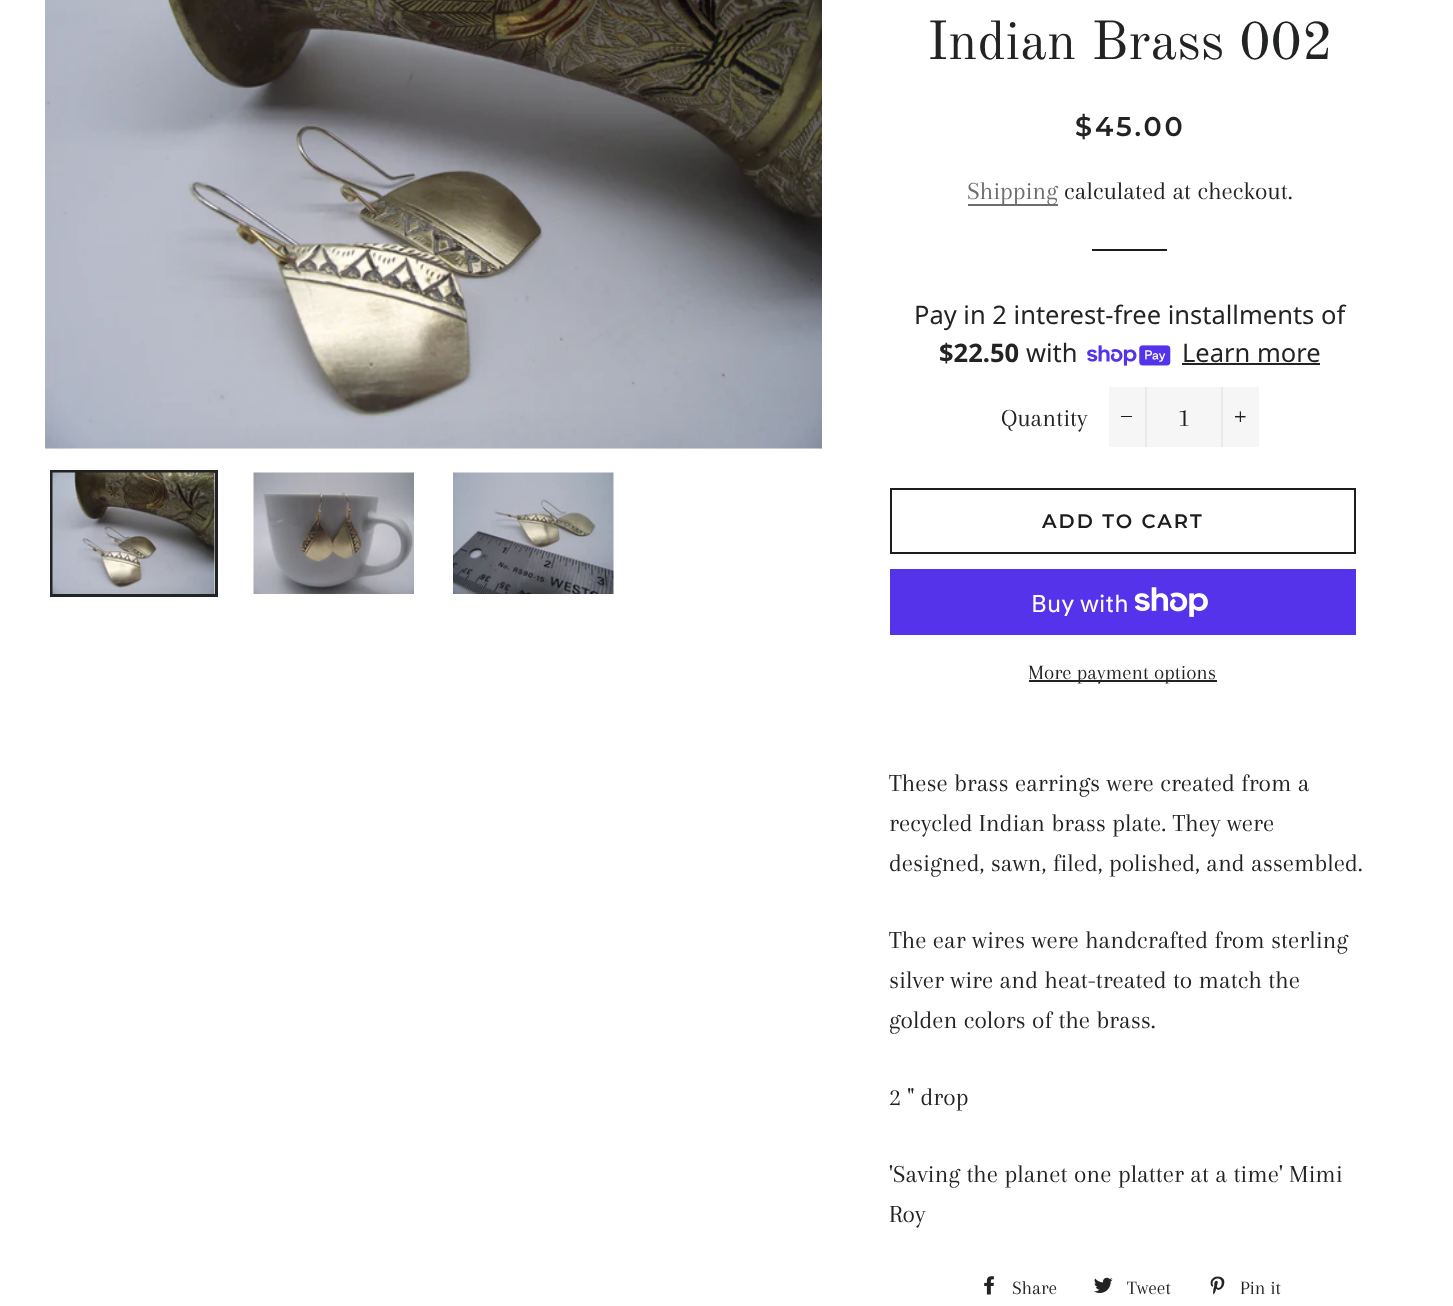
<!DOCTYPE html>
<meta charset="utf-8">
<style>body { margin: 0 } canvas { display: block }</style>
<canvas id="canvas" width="1453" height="1306"></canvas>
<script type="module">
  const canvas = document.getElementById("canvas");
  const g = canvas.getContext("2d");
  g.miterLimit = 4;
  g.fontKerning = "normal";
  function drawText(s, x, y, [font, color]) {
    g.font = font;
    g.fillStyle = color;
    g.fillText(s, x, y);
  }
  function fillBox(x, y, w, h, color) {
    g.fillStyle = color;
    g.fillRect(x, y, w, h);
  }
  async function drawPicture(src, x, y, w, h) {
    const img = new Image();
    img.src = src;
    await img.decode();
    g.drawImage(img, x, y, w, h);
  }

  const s1 = ["54px Old Standard TT", "#222323"];
  const s2 = ["600 27px Montserrat", "#222323"];
  const s3 = ["25.5px Arapey", "#6D6D6D"];
  const s4 = ["25.5px Arapey", "#222323"];
  const s5 = ["25.5px Noto Sans", "#222323"];
  const s6 = ["bold 25.5px Noto Sans", "#222323"];
  const s7 = ["27px Arapey", "#1C1D1D"];
  const s8 = ["600 19.5px Montserrat", "#1C1D1D"];
  const s9 = ["24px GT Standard", "#FFFFFF"];
  const s10 = ["21px Arapey", "#222323"];
  const s11 = ["19.5px Arapey", "#222323"];

  fillBox(0, 0, 1453, 1306, "#FFFFFF");
  fillBox(45, 448, 777, 1, "#F7F7F7");
  await drawPicture("pic1.png", 45, 0, 777, 449);
  g.strokeStyle = "#222323";
  g.lineWidth = 3;
  g.strokeRect(51.5, 471.5, 165, 124);
  await drawPicture("pic2.png", 52, 472, 163, 122);
  await drawPicture("pic3.png", 253, 472, 161, 122);
  await drawPicture("pic4.png", 453, 472, 161, 122);
  drawText("Indian Brass 002", 927, 59, s1);
  g.letterSpacing = "2.75px";
  drawText("$45.00", 1075, 136, s2);
  fillBox(968, 204, 90, 2, "#6D6D6D");
  g.letterSpacing = "0px";
  drawText("Shipping", 967, 199, s3);
  drawText("calculated at checkout.", 1064, 199, s4);
  fillBox(1092, 249, 75, 2, "#1C1D1D");
  drawText("Pay in 2 interest-free installments of", 914, 324, s5);
  drawText("$22.50", 939, 362, s6);
  drawText("with", 1026, 362, s5);
  await drawPicture("pic5.png", 1087, 345, 84, 21);
  drawText("Learn more", 1182, 362, s5);
  fillBox(1182, 363, 138, 2, "#222323");
  drawText("Quantity", 1001, 426, s4);
  fillBox(1109, 387, 150, 60, "#F6F6F6");
  fillBox(1145, 387, 2, 60, "#E9E9E9");
  fillBox(1121, 416, 11, 1, "#1C1D1D");
  drawText("1", 1178, 426, s7);
  fillBox(1221, 387, 2, 60, "#E9E9E9");
  await drawPicture("pic6.png", 1235, 411, 11, 11);
  g.strokeStyle = "#1C1D1D";
  g.lineWidth = 2;
  g.strokeRect(891, 489, 464, 64);
  g.letterSpacing = "2px";
  drawText("ADD TO CART", 1042, 528, s8);
  fillBox(890, 569, 466, 66, "#5433EB");
  g.letterSpacing = "0px";
  drawText("Buy with", 1031, 612, s9);
  await drawPicture("pic7.png", 1134, 587, 74, 30);
  fillBox(1029, 680, 188, 2, "#222323");
  drawText("More payment options", 1028, 679, s10);
  drawText("These brass earrings were created from a", 889, 791, s4);
  drawText("recycled Indian brass plate. They were", 889, 831, s4);
  drawText("designed, sawn, filed, polished, and assembled.", 889, 871, s4);
  drawText("The ear wires were handcrafted from sterling", 889, 948, s4);
  drawText("silver wire and heat-treated to match the", 889, 988, s4);
  drawText("golden colors of the brass.", 889, 1028, s4);
  drawText("2 \" drop", 889, 1105, s4);
  drawText("'Saving the planet one platter at a time' Mimi", 889, 1182, s4);
  drawText("Roy", 889, 1222, s4);
  await drawPicture("pic8.png", 984, 1276, 10, 19);
  drawText("Share", 1012, 1294, s11);
  await drawPicture("pic9.png", 1094, 1277, 19, 16);
  drawText("Tweet", 1127, 1294, s11);
  await drawPicture("pic10.png", 1210, 1276, 15, 19);
  drawText("Pin it", 1240, 1294, s11);
</script>
